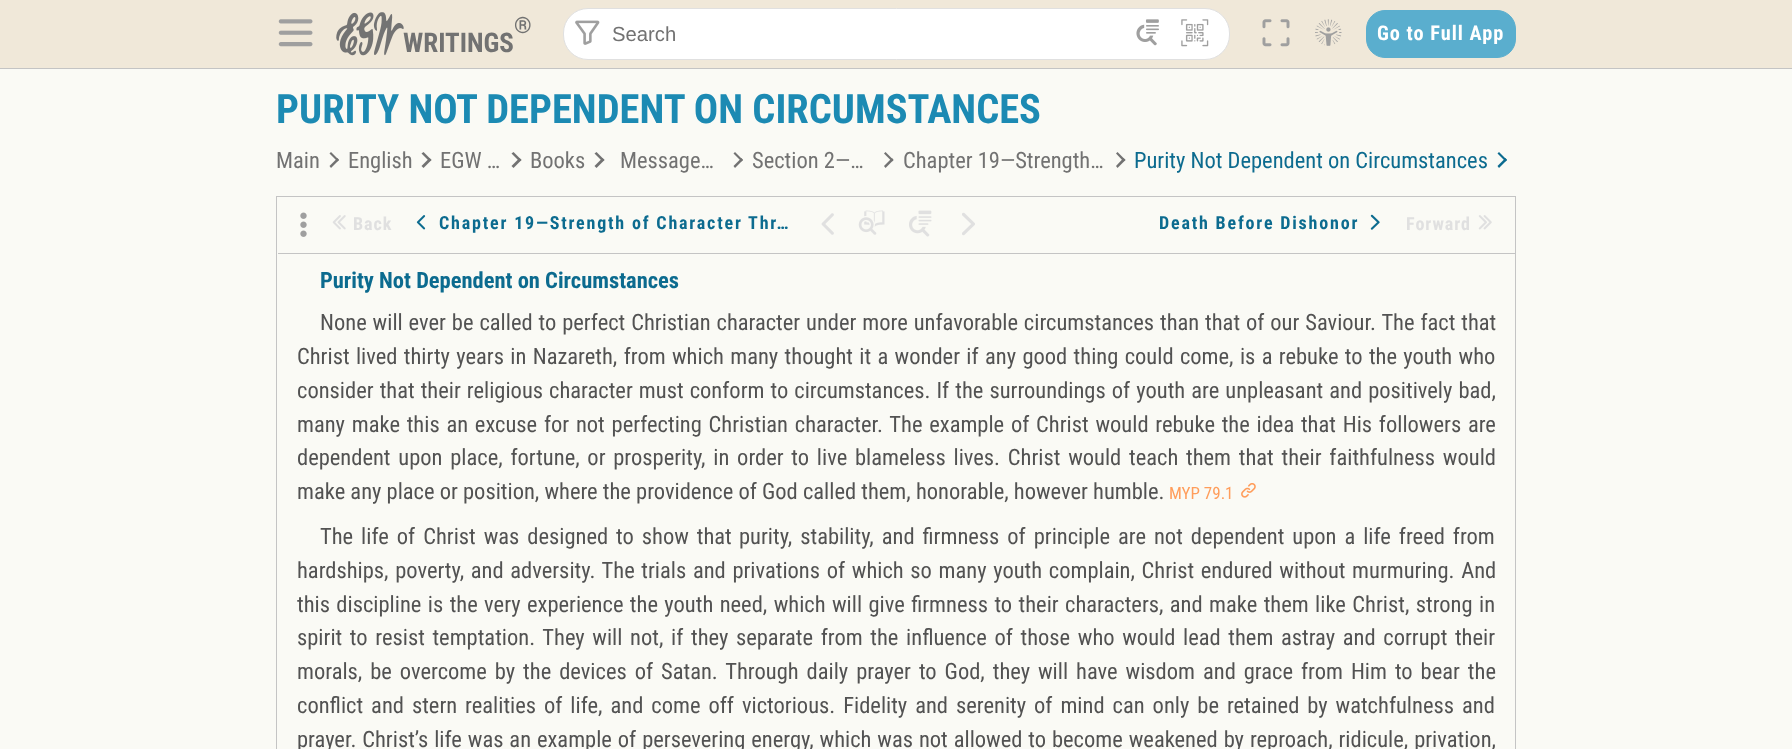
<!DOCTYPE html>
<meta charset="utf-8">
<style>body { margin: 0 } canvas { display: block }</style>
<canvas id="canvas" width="1792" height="749"></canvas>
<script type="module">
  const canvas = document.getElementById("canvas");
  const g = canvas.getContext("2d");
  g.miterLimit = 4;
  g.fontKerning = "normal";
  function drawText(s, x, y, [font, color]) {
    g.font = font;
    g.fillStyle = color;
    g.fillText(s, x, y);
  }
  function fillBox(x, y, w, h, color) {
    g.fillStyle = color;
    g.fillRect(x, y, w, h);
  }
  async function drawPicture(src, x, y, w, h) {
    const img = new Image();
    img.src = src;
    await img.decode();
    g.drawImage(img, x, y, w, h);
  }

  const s1 = ["bold 22.5px Roboto Condensed", "#727272"];
  const s2 = ["bold 27px Roboto Condensed", "#727272"];
  const s3 = ["20.25px Liberation Sans", "#727272"];
  const s4 = ["bold 20.25px Roboto Condensed", "#FFFFFF"];
  const s5 = ["bold 40.5px Roboto Condensed", "#1C8AB3"];
  const s6 = ["22.5px Roboto Condensed", "#727272"];
  const s7 = ["22.5px Roboto Condensed", "#0C6B8F"];
  const s8 = ["bold 18px Roboto Condensed", "#E0E0E0"];
  const s9 = ["bold 18px Roboto Condensed", "#0C6B8F"];
  const s10 = ["bold 22.5px Roboto Condensed", "#0C6B8F"];
  const s11 = ["22.5px Roboto Condensed", "#525252"];
  const s12 = ["17px Roboto Condensed", "#FF9D5B"];

  fillBox(0, 0, 1792, 749, "#FAFAF5");
  fillBox(0, 0, 1792, 68, "#F0E8D9");
  fillBox(0, 68, 1792, 1, "#C4C4C4");
  await drawPicture("pic1.png", 278, 19, 35, 28);
  await drawPicture("pic2.png", 336, 12, 68, 44);
  drawText("®", 514, 33, s1);
  drawText("WRITINGS", 403, 52, s2);
  g.fillStyle = "#FFFFFF";
  g.beginPath();
  g.roundRect(563.5, 8.5, 666, 51, 24.5);
  g.fill();
  g.strokeStyle = "#E0E0E0";
  g.stroke();
  await drawPicture("pic3.png", 575, 20, 25, 25);
  drawText("Search", 612, 41, s3);
  await drawPicture("pic4.png", 1136, 19, 23, 27);
  await drawPicture("pic5.png", 1181, 19, 28, 28);
  await drawPicture("pic6.png", 1262, 19, 28, 28);
  await drawPicture("pic7.png", 1315, 19, 27, 27);
  g.fillStyle = "#5AAECE";
  g.beginPath();
  g.roundRect(1366.5, 10.5, 149, 47, 18.5);
  g.fill();
  g.strokeStyle = "#5AAECE";
  g.stroke();
  g.letterSpacing = "1px";
  drawText("Go to Full App", 1377, 40, s4);
  g.letterSpacing = "0px";
  drawText("PURITY NOT DEPENDENT ON CIRCUMSTANCES", 276, 123, s5);
  drawText("Main", 276, 168, s6);
  g.beginPath();
  g.moveTo(329.5, 153.5);
  g.lineTo(331, 152);
  g.lineTo(339, 160);
  g.lineTo(337.5, 161.5);
  g.closePath();
  g.fill();
  g.beginPath();
  g.moveTo(329.5, 166);
  g.lineTo(337.5, 158);
  g.lineTo(339, 160);
  g.lineTo(331, 168);
  g.closePath();
  g.fill();
  drawText("English", 348, 168, s6);
  g.beginPath();
  g.moveTo(421.5, 153.5);
  g.lineTo(423.5, 152);
  g.lineTo(431.5, 160);
  g.lineTo(429.5, 161.5);
  g.closePath();
  g.fill();
  g.beginPath();
  g.moveTo(421.5, 166);
  g.lineTo(429.5, 158);
  g.lineTo(431.5, 160);
  g.lineTo(423.5, 168);
  g.closePath();
  g.fill();
  drawText("EGW …", 440, 168, s6);
  g.beginPath();
  g.moveTo(511.5, 153.5);
  g.lineTo(513.5, 152);
  g.lineTo(521.5, 160);
  g.lineTo(519.5, 161.5);
  g.closePath();
  g.fill();
  g.beginPath();
  g.moveTo(511.5, 166);
  g.lineTo(519.5, 158);
  g.lineTo(521.5, 160);
  g.lineTo(513.5, 168);
  g.closePath();
  g.fill();
  drawText("Books", 530, 168, s6);
  g.beginPath();
  g.moveTo(594.5, 153.5);
  g.lineTo(596.5, 152);
  g.lineTo(604.5, 160);
  g.lineTo(602.5, 161.5);
  g.closePath();
  g.fill();
  g.beginPath();
  g.moveTo(594.5, 166);
  g.lineTo(602.5, 158);
  g.lineTo(604.5, 160);
  g.lineTo(596.5, 168);
  g.closePath();
  g.fill();
  drawText("Message…", 620, 168, s6);
  g.beginPath();
  g.moveTo(733.5, 153.5);
  g.lineTo(735, 152);
  g.lineTo(743, 160);
  g.lineTo(741.5, 161.5);
  g.closePath();
  g.fill();
  g.beginPath();
  g.moveTo(733.5, 166);
  g.lineTo(741.5, 158);
  g.lineTo(743, 160);
  g.lineTo(735, 168);
  g.closePath();
  g.fill();
  drawText("Section 2—…", 752, 168, s6);
  g.beginPath();
  g.moveTo(884, 153.5);
  g.lineTo(885.5, 152);
  g.lineTo(893.5, 160);
  g.lineTo(892, 161.5);
  g.closePath();
  g.fill();
  g.beginPath();
  g.moveTo(884, 166);
  g.lineTo(892, 158);
  g.lineTo(893.5, 160);
  g.lineTo(885.5, 168);
  g.closePath();
  g.fill();
  drawText("Chapter 19—Strength…", 903, 168, s6);
  g.beginPath();
  g.moveTo(1116, 153.5);
  g.lineTo(1117.5, 152);
  g.lineTo(1125.5, 160);
  g.lineTo(1123.5, 161.5);
  g.closePath();
  g.fill();
  g.beginPath();
  g.moveTo(1116, 166);
  g.lineTo(1123.5, 158);
  g.lineTo(1125.5, 160);
  g.lineTo(1117.5, 168);
  g.closePath();
  g.fill();
  drawText("Purity Not Dependent on Circumstances", 1134, 168, s7);
  g.beginPath();
  g.moveTo(1497.5, 153.5);
  g.lineTo(1499, 152);
  g.lineTo(1507, 160);
  g.lineTo(1505.5, 161.5);
  g.closePath();
  g.fill();
  g.beginPath();
  g.moveTo(1497.5, 166);
  g.lineTo(1505.5, 158);
  g.lineTo(1507, 160);
  g.lineTo(1499, 168);
  g.closePath();
  g.fill();
  g.strokeStyle = "#C4C4C4";
  g.strokeRect(276.5, 196.5, 1239, 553);
  fillBox(278, 253, 1237, 1, "#C4C4C4");
  await drawPicture("pic8.png", 300, 212, 7, 25);
  await drawPicture("pic9.png", 332, 215, 14, 15);
  g.letterSpacing = "1px";
  drawText("Back", 353, 230, s8);
  await drawPicture("pic10.png", 416, 215, 10, 15);
  g.letterSpacing = "1.8px";
  drawText("Chapter 19—Strength of Character Thr…", 439, 229, s9);
  await drawPicture("pic11.png", 821, 213, 13, 22);
  await drawPicture("pic12.png", 858, 210, 27, 25);
  await drawPicture("pic13.png", 909, 210, 23, 27);
  await drawPicture("pic14.png", 962, 212, 13, 24);
  drawText("Death Before Dishonor", 1159, 229, s9);
  await drawPicture("pic15.png", 1370, 214, 10, 16);
  g.letterSpacing = "1px";
  drawText("Forward", 1406, 230, s8);
  await drawPicture("pic16.png", 1478, 215, 14, 15);
  g.letterSpacing = "0px";
  drawText("Purity Not Dependent on Circumstances", 320, 288, s10);
  g.wordSpacing = "0.75px";
  drawText("None will ever be called to perfect Christian character under more unfavorable circumstances than that of our Saviour. The fact that", 320, 330, s11);
  g.wordSpacing = "1.2px";
  drawText("Christ lived thirty years in Nazareth, from which many thought it a wonder if any good thing could come, is a rebuke to the youth who", 297, 364, s11);
  g.wordSpacing = "0.9px";
  drawText("consider that their religious character must conform to circumstances. If the surroundings of youth are unpleasant and positively bad,", 297, 398, s11);
  g.wordSpacing = "1.6px";
  drawText("many make this an excuse for not perfecting Christian character. The example of Christ would rebuke the idea that His followers are", 297, 432, s11);
  g.wordSpacing = "2.6px";
  drawText("dependent upon place, fortune, or prosperity, in order to live blameless lives. Christ would teach them that their faithfulness would", 297, 465, s11);
  g.wordSpacing = "0px";
  drawText("make any place or position, where the providence of God called them, honorable, however humble.", 297, 499, s11);
  drawText("MYP 79.1", 1169, 499, s12);
  await drawPicture("pic17.png", 1241, 483, 15, 15);
  g.wordSpacing = "2.8px";
  drawText("The life of Christ was designed to show that", 320, 544, s11);
  drawText("purity, stability, and firmness of principle are not dependent upon a life freed from", 739, 544, s11);
  g.wordSpacing = "1.5px";
  drawText("hardships, poverty, and adversity. The trials and privations of which so many youth complain, Christ endured without murmuring. And", 297, 578, s11);
  g.wordSpacing = "1.25px";
  drawText("this discipline is the very experience the youth need, which will give firmness to their characters, and make them like Christ, strong in", 297, 612, s11);
  g.wordSpacing = "2.5px";
  drawText("spirit to resist temptation. They will not, if they separate from the influence of those who would lead them astray and corrupt their", 297, 645, s11);
  g.wordSpacing = "2.8px";
  drawText("morals, be overcome by the devices of Satan. Through daily prayer to God, they will have wisdom and grace from Him to bear the", 297, 679, s11);
  drawText("conflict and stern realities of life, and come off victorious. Fidelity and serenity of mind can only be retained by watchfulness and", 297, 713, s11);
  g.wordSpacing = "0.75px";
  drawText("prayer. Christ’s life was an example of persevering energy, which was not allowed to become weakened by reproach, ridicule, privation,", 297, 747, s11);
</script>
